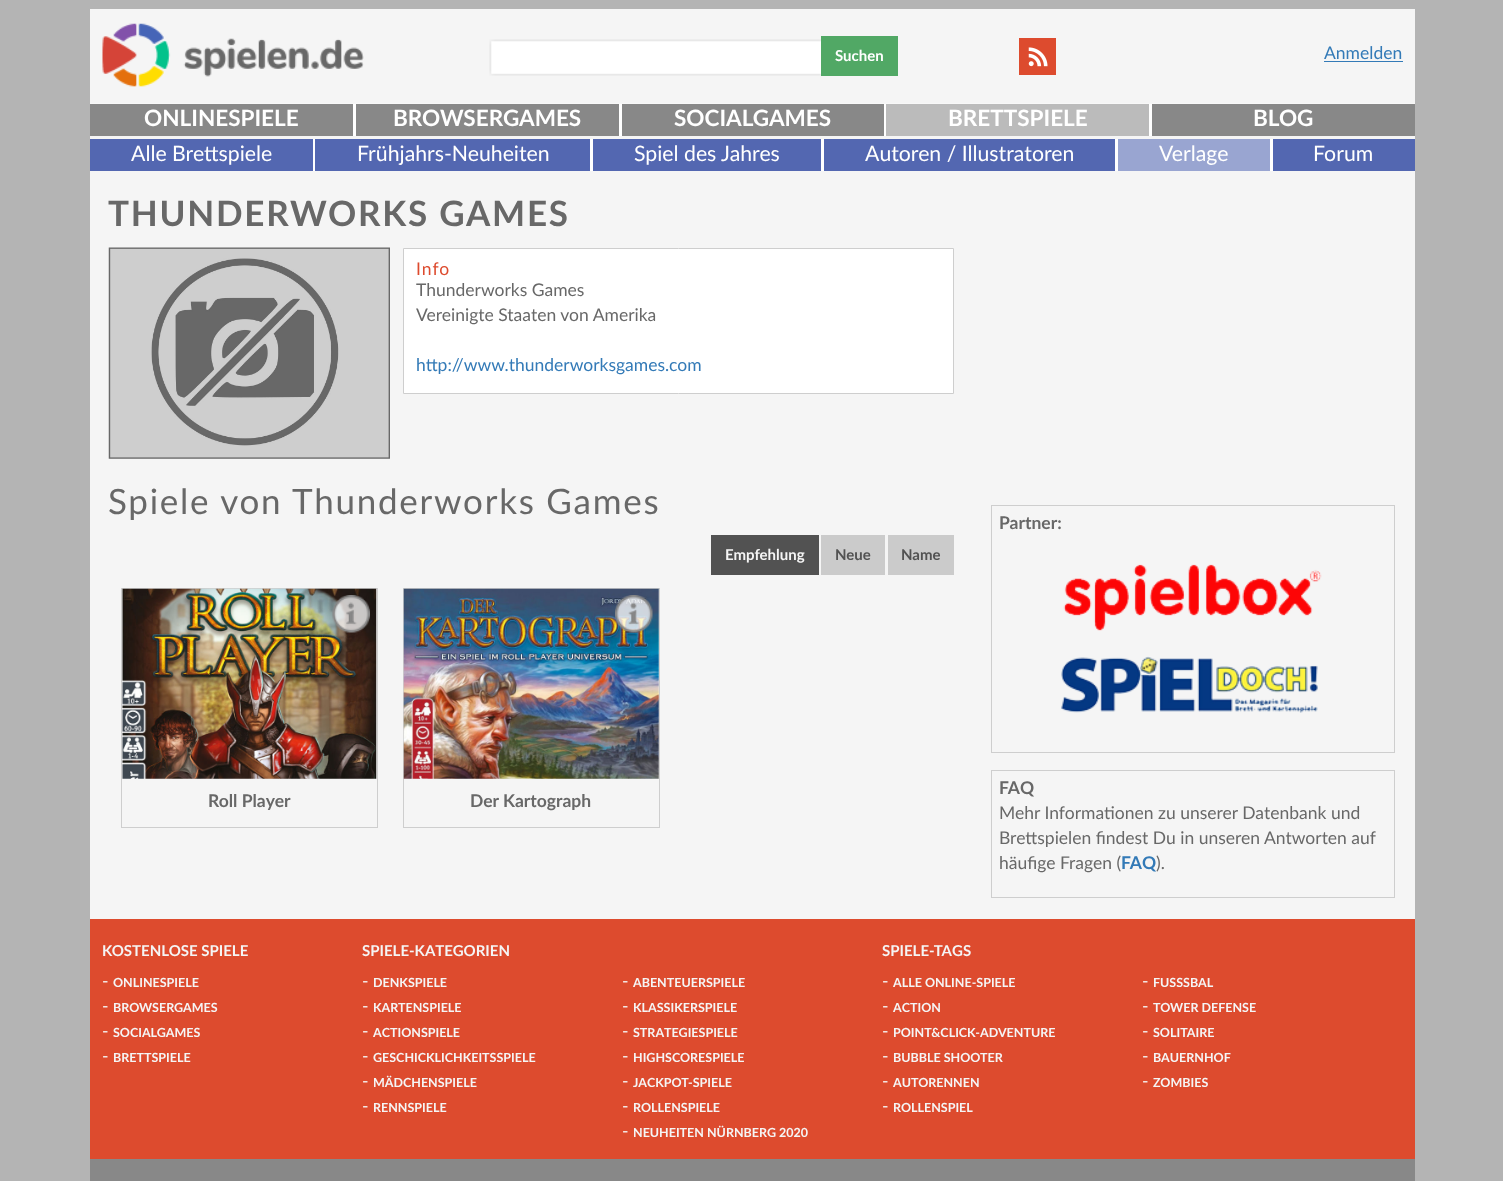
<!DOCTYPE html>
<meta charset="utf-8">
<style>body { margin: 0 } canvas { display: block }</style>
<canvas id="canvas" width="1503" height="1181"></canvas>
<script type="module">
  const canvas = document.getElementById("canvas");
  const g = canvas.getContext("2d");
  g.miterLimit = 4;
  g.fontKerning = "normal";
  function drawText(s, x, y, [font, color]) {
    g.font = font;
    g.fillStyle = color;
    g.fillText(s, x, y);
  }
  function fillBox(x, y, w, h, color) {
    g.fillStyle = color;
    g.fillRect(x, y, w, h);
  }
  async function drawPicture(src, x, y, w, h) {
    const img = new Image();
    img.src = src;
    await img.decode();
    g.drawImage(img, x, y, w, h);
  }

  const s1 = ["bold 15px Lato", "#FFFFFF"];
  const s2 = ["17.5px Lato", "#337AB7"];
  const s3 = ["bold 22.5px Lato", "#FFFFFF"];
  const s4 = ["21.25px Lato", "#FFFFFF"];
  const s5 = ["bold 35px Lato", "#686868"];
  const s6 = ["17.5px Lato", "#DD4B2E"];
  const s7 = ["17.5px Lato", "#686868"];
  const s8 = ["35px Lato", "#686868"];
  const s9 = ["bold 15px Lato", "#F5F5F5"];
  const s10 = ["bold 15px Lato", "#525252"];
  const s11 = ["bold 17.5px Lato", "#686868"];
  const s12 = ["bold 17.5px Lato", "#337AB7"];
  const s13 = ["17.5px Lato", "#F5F5F5"];
  const s14 = ["bold 12.5px Lato", "#F5F5F5"];

  fillBox(0, 0, 1503, 1181, "#B4B4B4");
  fillBox(90, 9, 1325, 910, "#F5F5F5");
  await drawPicture("pic1.png", 102, 23, 262, 64);
  await drawPicture("pic2.png", 489, 39, 332, 37);
  fillBox(821, 36, 77, 40, "#51A865");
  drawText("Suchen", 835, 61, s1);
  fillBox(1019, 38, 37, 37, "#DD4B2E");
  await drawPicture("pic3.png", 1028, 47, 20, 20);
  drawText("Anmelden", 1324, 59, s2);
  fillBox(1324, 61, 79, 1, "#337AB7");
  fillBox(90, 103, 1325, 1, "#F8F8F8");
  fillBox(90, 104, 1325, 32, "#888888");
  drawText("ONLINESPIELE", 144, 126, s3);
  fillBox(353, 104, 3, 32, "#FFFFFF");
  drawText("BROWSERGAMES", 393, 126, s3);
  fillBox(619, 104, 3, 32, "#FFFFFF");
  drawText("SOCIALGAMES", 674, 126, s3);
  fillBox(884, 104, 2, 32, "#FFFFFF");
  fillBox(886, 104, 263, 32, "#BBBBBB");
  drawText("BRETTSPIELE", 948, 126, s3);
  fillBox(1149, 104, 3, 32, "#FFFFFF");
  drawText("BLOG", 1253, 126, s3);
  fillBox(90, 139, 1325, 32, "#5367B1");
  drawText("Alle Brettspiele", 131, 161, s4);
  fillBox(313, 139, 2, 32, "#FFFFFF");
  drawText("Frühjahrs-Neuheiten", 357, 161, s4);
  fillBox(590, 139, 3, 32, "#FFFFFF");
  drawText("Spiel des Jahres", 634, 161, s4);
  fillBox(821, 139, 3, 32, "#FFFFFF");
  drawText("Autoren / Illustratoren", 865, 161, s4);
  fillBox(1115, 139, 3, 32, "#FFFFFF");
  fillBox(1118, 139, 152, 32, "#99A5D1");
  drawText("Verlage", 1159, 161, s4);
  fillBox(1270, 139, 3, 32, "#FFFFFF");
  drawText("Forum", 1313, 161, s4);
  g.letterSpacing = "1.75px";
  drawText("THUNDERWORKS GAMES", 108, 226, s5);
  await drawPicture("pic4.png", 108, 247, 282, 212);
  g.fillStyle = "#FFFFFF";
  g.beginPath();
  g.rect(403.5, 248.5, 550, 145);
  g.fill();
  g.strokeStyle = "#CECECE";
  g.stroke();
  g.letterSpacing = "1px";
  drawText("Info", 416, 275, s6);
  g.letterSpacing = "0px";
  drawText("Thunderworks Games", 416, 296, s7);
  drawText("Vereinigte Staaten von Amerika", 416, 321, s7);
  drawText("http://www.thunderworksgames.com", 416, 371, s2);
  g.letterSpacing = "1.75px";
  drawText("Spiele von Thunderworks Games", 108, 514, s8);
  fillBox(711, 535, 108, 40, "#525252");
  g.letterSpacing = "0px";
  drawText("Empfehlung", 725, 560, s9);
  fillBox(821, 535, 64, 40, "#CBCBCB");
  drawText("Neue", 835, 560, s10);
  fillBox(888, 535, 66, 40, "#CBCBCB");
  drawText("Name", 901, 560, s10);
  g.strokeRect(121.5, 588.5, 256, 239);
  await drawPicture("pic5.png", 122, 588, 255, 191);
  await drawPicture("pic6.png", 332, 595, 38, 38);
  drawText("Roll Player", 208, 807, s11);
  g.strokeRect(403.5, 588.5, 256, 239);
  await drawPicture("pic7.png", 403, 588, 256, 191);
  await drawPicture("pic8.png", 615, 595, 38, 38);
  drawText("Der Kartograph", 470, 807, s11);
  g.strokeRect(991.5, 505.5, 403, 247);
  drawText("Partner:", 999, 529, s11);
  await drawPicture("pic9.png", 1063, 564, 259, 67);
  await drawPicture("pic10.png", 1061, 656, 257, 57);
  g.strokeRect(991.5, 770.5, 403, 127);
  drawText("FAQ", 999, 794, s11);
  drawText("Mehr Informationen zu unserer Datenbank und", 999, 819, s7);
  drawText("Brettspielen findest Du in unseren Antworten auf", 999, 844, s7);
  drawText("häufige Fragen (", 999, 869, s7);
  drawText("FAQ", 1121, 869, s12);
  drawText(").", 1156, 869, s7);
  fillBox(90, 919, 1325, 240, "#DD4B2E");
  drawText("KOSTENLOSE SPIELE", 102, 956, s9);
  drawText("-", 102, 987, s13);
  drawText("ONLINESPIELE", 113, 987, s14);
  drawText("-", 102, 1012, s13);
  drawText("BROWSERGAMES", 113, 1012, s14);
  drawText("-", 102, 1037, s13);
  drawText("SOCIALGAMES", 113, 1037, s14);
  drawText("-", 102, 1062, s13);
  drawText("BRETTSPIELE", 113, 1062, s14);
  drawText("SPIELE-KATEGORIEN", 362, 956, s9);
  drawText("-", 362, 987, s13);
  drawText("DENKSPIELE", 373, 987, s14);
  drawText("-", 362, 1012, s13);
  drawText("KARTENSPIELE", 373, 1012, s14);
  drawText("-", 362, 1037, s13);
  drawText("ACTIONSPIELE", 373, 1037, s14);
  drawText("-", 362, 1062, s13);
  drawText("GESCHICKLICHKEITSSPIELE", 373, 1062, s14);
  drawText("-", 362, 1087, s13);
  drawText("MÄDCHENSPIELE", 373, 1087, s14);
  drawText("-", 362, 1112, s13);
  drawText("RENNSPIELE", 373, 1112, s14);
  drawText("-", 622, 987, s13);
  drawText("ABENTEUERSPIELE", 633, 987, s14);
  drawText("-", 622, 1012, s13);
  drawText("KLASSIKERSPIELE", 633, 1012, s14);
  drawText("-", 622, 1037, s13);
  drawText("STRATEGIESPIELE", 633, 1037, s14);
  drawText("-", 622, 1062, s13);
  drawText("HIGHSCORESPIELE", 633, 1062, s14);
  drawText("-", 622, 1087, s13);
  drawText("JACKPOT-SPIELE", 633, 1087, s14);
  drawText("-", 622, 1112, s13);
  drawText("ROLLENSPIELE", 633, 1112, s14);
  drawText("-", 622, 1137, s13);
  drawText("NEUHEITEN NÜRNBERG 2020", 633, 1137, s14);
  drawText("SPIELE-TAGS", 882, 956, s9);
  drawText("-", 882, 987, s13);
  drawText("ALLE ONLINE-SPIELE", 893, 987, s14);
  drawText("-", 882, 1012, s13);
  drawText("ACTION", 893, 1012, s14);
  drawText("-", 882, 1037, s13);
  drawText("POINT&CLICK-ADVENTURE", 893, 1037, s14);
  drawText("-", 882, 1062, s13);
  drawText("BUBBLE SHOOTER", 893, 1062, s14);
  drawText("-", 882, 1087, s13);
  drawText("AUTORENNEN", 893, 1087, s14);
  drawText("-", 882, 1112, s13);
  drawText("ROLLENSPIEL", 893, 1112, s14);
  drawText("-", 1142, 987, s13);
  drawText("FUSSSBAL", 1153, 987, s14);
  drawText("-", 1142, 1012, s13);
  drawText("TOWER DEFENSE", 1153, 1012, s14);
  drawText("-", 1142, 1037, s13);
  drawText("SOLITAIRE", 1153, 1037, s14);
  drawText("-", 1142, 1062, s13);
  drawText("BAUERNHOF", 1153, 1062, s14);
  drawText("-", 1142, 1087, s13);
  drawText("ZOMBIES", 1153, 1087, s14);
  fillBox(90, 1159, 1325, 22, "#888888");
</script>
